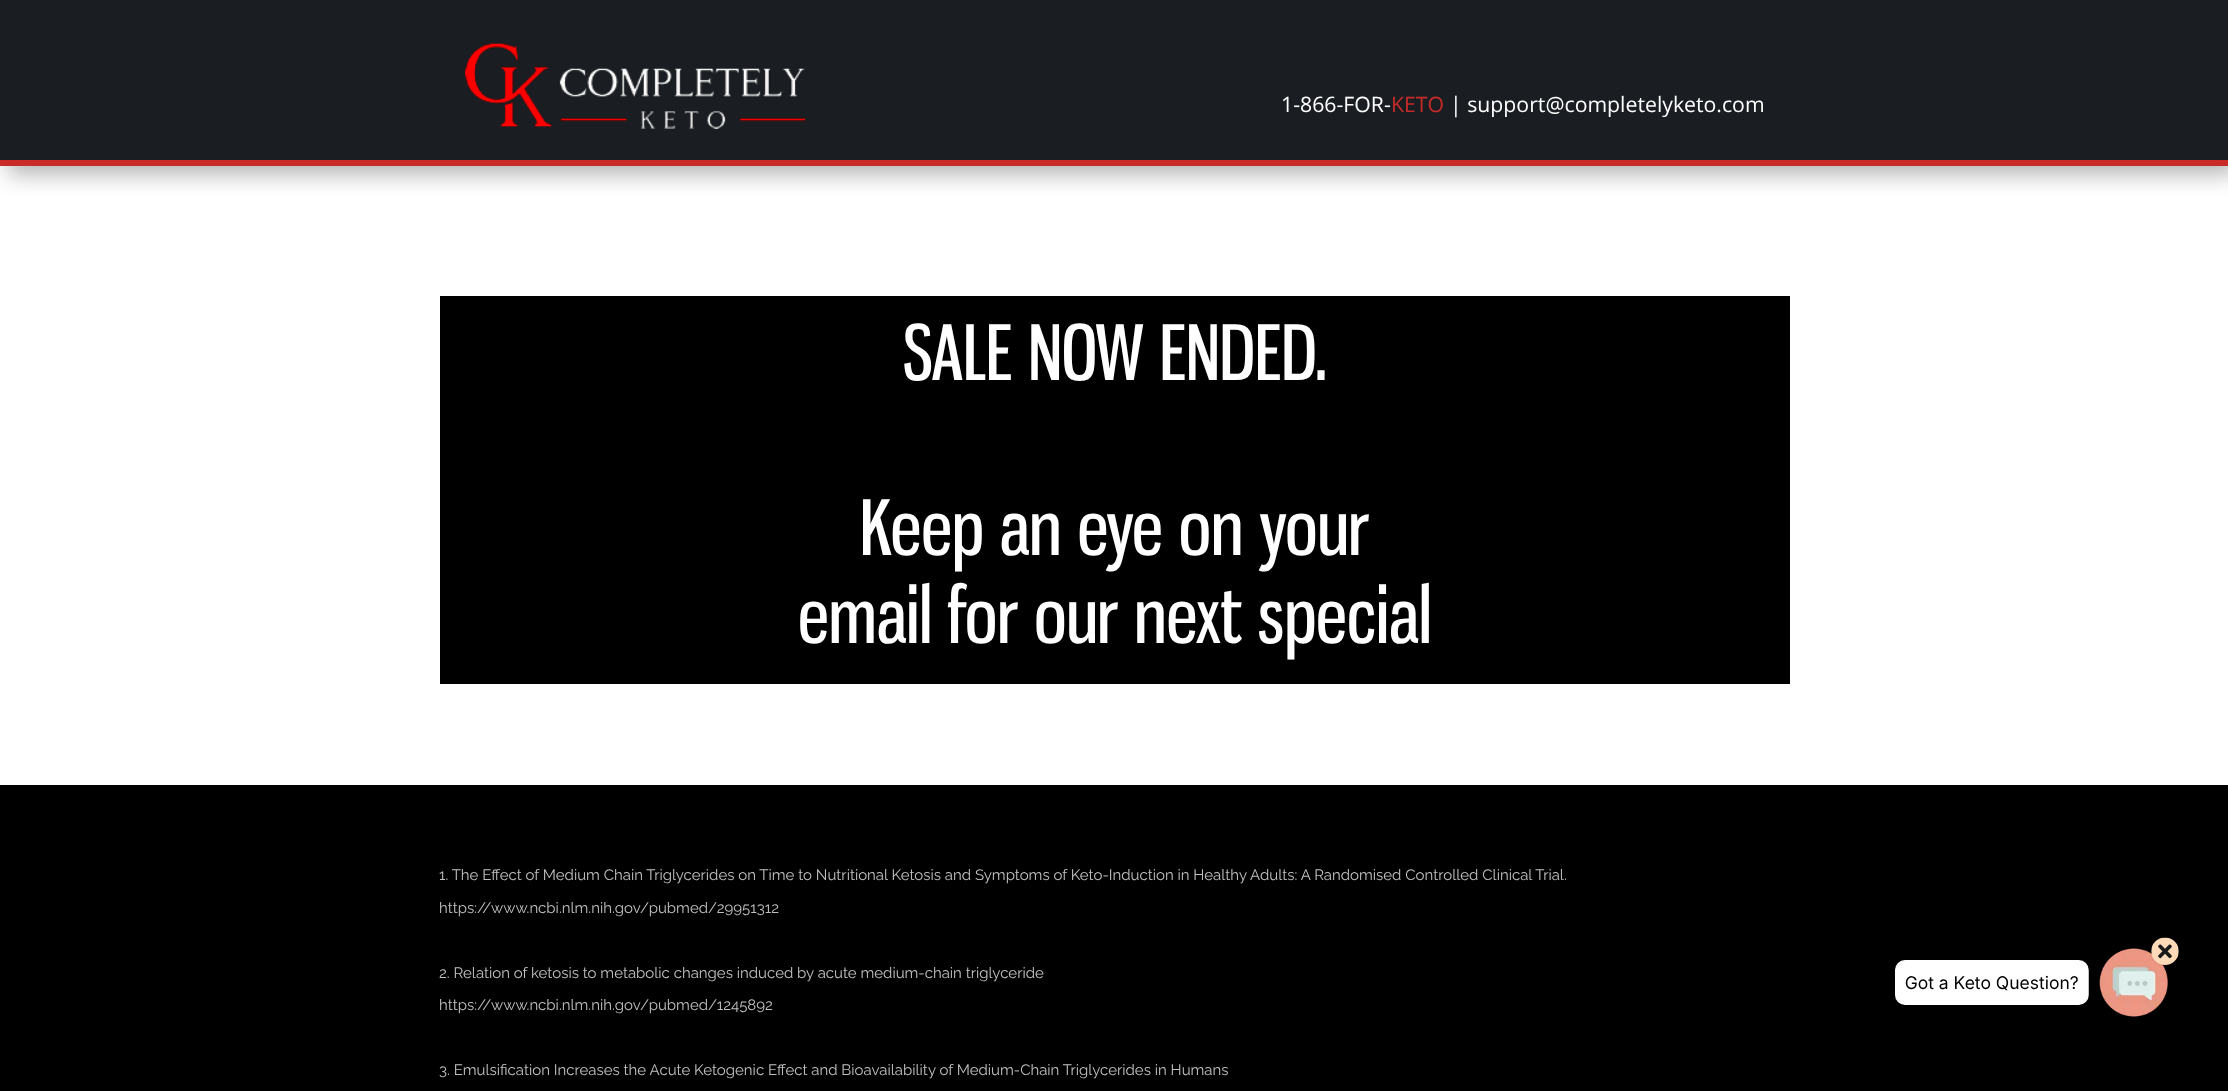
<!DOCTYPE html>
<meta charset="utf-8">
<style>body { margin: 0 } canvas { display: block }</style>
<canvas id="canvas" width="2228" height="1091"></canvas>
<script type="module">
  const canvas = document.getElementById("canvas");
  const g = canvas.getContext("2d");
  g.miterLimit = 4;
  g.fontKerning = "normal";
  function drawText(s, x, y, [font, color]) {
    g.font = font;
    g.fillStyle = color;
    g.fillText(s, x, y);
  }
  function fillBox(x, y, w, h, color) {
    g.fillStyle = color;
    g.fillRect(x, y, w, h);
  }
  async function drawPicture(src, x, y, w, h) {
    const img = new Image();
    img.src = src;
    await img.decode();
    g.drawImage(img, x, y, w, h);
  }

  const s1 = ["21.25px Open Sans", "#FFFFFF"];
  const s2 = ["21.25px Open Sans", "#C72A27"];
  const s3 = ["75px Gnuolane", "#FFFFFF"];
  const s4 = ["15px Raleway", "#C1C1C1"];

  fillBox(0, 0, 2228, 1091, "#FFFFFF");
  g.fillStyle = "rgba(0, 0, 0, 0.3)";
  g.filter = "blur(11px)";
  g.beginPath();
  g.rect(8, 6, 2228, 168);
  g.fill();
  g.filter = "none";
  fillBox(0, 0, 2228, 160, "#1A1E23");
  fillBox(0, 160, 2228, 6, "#C82B28");
  await drawPicture("pic1.png", 465, 43, 340, 86);
  drawText("1-866-FOR-", 1281, 112, s1);
  drawText("KETO", 1391, 112, s2);
  drawText("| support@completelyketo.com", 1450, 112, s1);
  fillBox(440, 296, 1350, 388, "#000000");
  drawText("SALE NOW ENDED.", 903, 380, s3);
  drawText("Keep an eye on your", 860, 555, s3);
  drawText("email for our next special", 798, 643, s3);
  fillBox(0, 785, 2228, 306, "#000000");
  drawText("1. The Effect of Medium Chain Triglycerides on Time to Nutritional Ketosis and Symptoms of Keto-Induction in Healthy Adults: A Randomised Controlled Clinical Trial.", 439, 880, s4);
  drawText("https://www.ncbi.nlm.nih.gov/pubmed/29951312", 439, 913, s4);
  drawText("2. Relation of ketosis to metabolic changes induced by acute medium-chain triglyceride", 439, 978, s4);
  drawText("https://www.ncbi.nlm.nih.gov/pubmed/1245892", 439, 1010, s4);
  drawText("3. Emulsification Increases the Acute Ketogenic Effect and Bioavailability of Medium-Chain Triglycerides in Humans", 439, 1075, s4);
  await drawPicture("pic2.png", 1895, 937, 284, 80);
</script>
